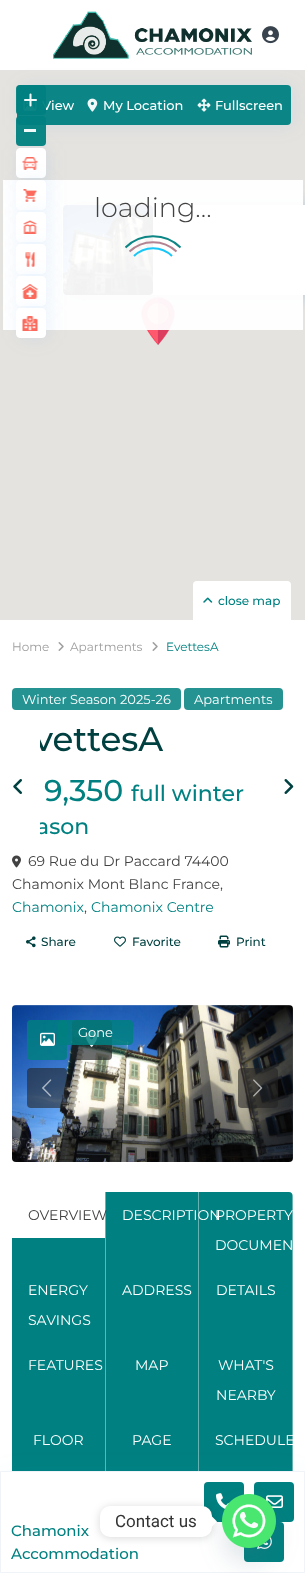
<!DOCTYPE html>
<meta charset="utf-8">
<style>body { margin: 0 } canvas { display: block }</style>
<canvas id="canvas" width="305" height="1573"></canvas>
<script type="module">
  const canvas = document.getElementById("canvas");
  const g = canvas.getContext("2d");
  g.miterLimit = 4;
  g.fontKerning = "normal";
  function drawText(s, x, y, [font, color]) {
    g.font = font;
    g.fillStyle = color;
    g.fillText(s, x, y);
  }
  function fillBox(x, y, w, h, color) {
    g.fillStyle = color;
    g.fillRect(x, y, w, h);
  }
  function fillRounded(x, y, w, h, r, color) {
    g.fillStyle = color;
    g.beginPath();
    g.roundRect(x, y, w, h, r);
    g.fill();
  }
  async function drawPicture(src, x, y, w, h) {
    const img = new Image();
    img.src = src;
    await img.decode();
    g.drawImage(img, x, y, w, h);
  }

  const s1 = ["500 13px Montserrat", "#FFFFFF"];
  const s2 = ["500 12px Montserrat", "#008080"];
  const s3 = ["300 27px Montserrat", "#424242"];
  const s4 = ["12px Montserrat", "#9E9E9E"];
  const s5 = ["12px Montserrat", "#008080"];
  const s6 = ["13px Montserrat", "#FFFFFF"];
  const s7 = ["500 34px Montserrat", "#004040"];
  const s8 = ["500 30px Montserrat", "#008080"];
  const s9 = ["500 22px Montserrat", "#008080"];
  const s10 = ["14px Montserrat", "#424242"];
  const s11 = ["14px Montserrat", "#008080"];
  const s12 = ["500 12px Montserrat", "#004040"];
  const s13 = ["14px Montserrat", "#FFFFFF"];
  const s14 = ["17px Roboto", "#333333"];
  const s15 = ["500 15px Montserrat", "#008080"];

  fillBox(0, 0, 305, 1573, "#FFFFFF");
  fillBox(0, 70, 305, 550, "#E5E3DF");
  g.fillStyle = "rgba(0, 110, 225, 0.08)";
  g.filter = "blur(10px)";
  g.beginPath();
  g.roundRect(20, 86, 274, 40, 4);
  g.fill();
  g.filter = "none";
  await drawPicture("pic1.png", 53, 11, 199, 48);
  await drawPicture("pic2.png", 262, 26, 17, 18);
  await drawPicture("pic4.png", 141, 297, 34, 48);
  g.fillStyle = "rgba(0, 110, 225, 0.18)";
  g.filter = "blur(10px)";
  g.beginPath();
  g.roundRect(65, 206, 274, 90, 4);
  g.fill();
  g.filter = "none";
  g.fillStyle = "#FFFFFF";
  g.beginPath();
  g.roundRect(62, 205, 243, 90, [4, 0, 0, 4]);
  g.fill();
  await drawPicture("pic3.png", 63, 205, 90, 90);
  fillRounded(17, 85, 274, 40, 4, "#0B8585");
  await drawPicture("pic6.png", 23, 99, 14, 12);
  drawText("View", 42, 110, s1);
  fillRounded(16, 85, 30, 30, 4, "rgba(0, 128, 128, 0.95)");
  await drawPicture("pic5.png", 24, 93, 13, 14);
  await drawPicture("pic7.png", 87, 98, 11, 14);
  drawText("My Location", 103, 110, s1);
  await drawPicture("pic8.png", 197, 98, 14, 14);
  drawText("Fullscreen", 215, 110, s1);
  fillBox(3, 180, 300, 150, "rgba(255, 255, 255, 0.95)");
  g.fillStyle = "rgba(0, 110, 225, 0.08)";
  g.filter = "blur(10px)";
  g.beginPath();
  g.roundRect(19, 149, 30, 30, 4);
  g.fill();
  g.filter = "none";
  fillRounded(16, 116, 30, 30, 4, "rgba(0, 128, 128, 0.95)");
  fillBox(24, 129, 12, 3, "#F3F9F9");
  g.fillStyle = "#FFFFFF";
  g.beginPath();
  g.roundRect(16.5, 148.5, 29, 29, 3.5);
  g.fill();
  g.strokeStyle = "#FFFFFF";
  g.stroke();
  await drawPicture("pic9.png", 22, 157, 16, 13);
  g.fillStyle = "rgba(0, 110, 225, 0.08)";
  g.filter = "blur(10px)";
  g.beginPath();
  g.roundRect(19, 181, 30, 30, 4);
  g.fill();
  g.filter = "none";
  g.fillStyle = "#FFFFFF";
  g.beginPath();
  g.roundRect(16.5, 180.5, 29, 29, 3.5);
  g.fill();
  g.stroke();
  await drawPicture("pic10.png", 23, 189, 14, 13);
  g.fillStyle = "rgba(0, 110, 225, 0.08)";
  g.filter = "blur(10px)";
  g.beginPath();
  g.roundRect(19, 213, 30, 30, 4);
  g.fill();
  g.filter = "none";
  g.fillStyle = "#FFFFFF";
  g.beginPath();
  g.roundRect(16.5, 212.5, 29, 29, 3.5);
  g.fill();
  g.stroke();
  await drawPicture("pic11.png", 23, 220, 14, 14);
  g.fillStyle = "rgba(0, 110, 225, 0.08)";
  g.filter = "blur(10px)";
  g.beginPath();
  g.roundRect(19, 245, 30, 30, 4);
  g.fill();
  g.filter = "none";
  g.fillStyle = "#FFFFFF";
  g.beginPath();
  g.roundRect(16.5, 244.5, 29, 29, 3.5);
  g.fill();
  g.stroke();
  await drawPicture("pic12.png", 25, 252, 10, 15);
  g.fillStyle = "rgba(0, 110, 225, 0.08)";
  g.filter = "blur(10px)";
  g.beginPath();
  g.roundRect(19, 277, 30, 30, 4);
  g.fill();
  g.filter = "none";
  g.fillStyle = "#FFFFFF";
  g.beginPath();
  g.roundRect(16.5, 276.5, 29, 29, 3.5);
  g.fill();
  g.stroke();
  await drawPicture("pic13.png", 22, 284, 16, 15);
  g.fillStyle = "rgba(0, 110, 225, 0.08)";
  g.filter = "blur(10px)";
  g.beginPath();
  g.roundRect(19, 309, 30, 30, 4);
  g.fill();
  g.filter = "none";
  g.fillStyle = "#FFFFFF";
  g.beginPath();
  g.roundRect(16.5, 308.5, 29, 29, 3.5);
  g.fill();
  g.stroke();
  await drawPicture("pic14.png", 22, 316, 16, 15);
  g.beginPath();
  g.roundRect(193, 581, 98, 39, [4, 4, 0, 0]);
  g.fill();
  await drawPicture("pic15.png", 203, 597, 10, 6);
  drawText("close map", 218, 605, s2);
  drawText("loading...", 94, 217, s3);
  g.beginPath();
  g.moveTo(125.5, 247.5);
  g.bezierCurveTo(140.5, 232.5, 165.5, 232.5, 180.5, 247.5);
  g.strokeStyle = "rgba(0, 128, 128, 0.95)";
  g.lineWidth = 2;
  g.stroke();
  g.beginPath();
  g.moveTo(129.5, 251.5);
  g.bezierCurveTo(142.5, 239, 163.5, 239, 176.5, 251.5);
  g.strokeStyle = "rgba(176, 125, 140, 0.95)";
  g.stroke();
  g.beginPath();
  g.moveTo(134, 256);
  g.bezierCurveTo(144.5, 245.5, 161.5, 245.5, 172, 256);
  g.strokeStyle = "rgba(13, 195, 248, 0.95)";
  g.stroke();
  drawText("Home", 12, 651, s4);
  await drawPicture("pic16.png", 58, 642, 6, 9);
  drawText("Apartments", 70, 651, s4);
  await drawPicture("pic16.png", 152, 642, 6, 9);
  drawText("EvettesA", 166, 651, s5);
  fillRounded(12, 688, 169, 22, 4, "#269393");
  drawText("Winter Season 2025-26", 22, 704, s6);
  fillRounded(184, 688, 99, 22, 4, "#269393");
  drawText("Apartments", 194, 704, s6);
  drawText("vettesA", 34, 751, s7);
  drawText("9,350", 44, 801, s8);
  drawText("full winter", 131, 801, s9);
  drawText("ason", 36, 834, s9);
  await drawPicture("pic17.png", 12, 855, 9, 13);
  drawText("69 Rue du Dr Paccard 74400", 28, 866, s10);
  drawText("Chamonix Mont Blanc France,", 12, 889, s10);
  drawText("Chamonix", 12, 912, s11);
  drawText(",", 84, 912, s10);
  drawText("Chamonix Centre", 91, 912, s11);
  await drawPicture("pic18.png", 26, 936, 10, 12);
  drawText("Share", 41, 946, s12);
  await drawPicture("pic19.png", 114, 936, 12, 11);
  drawText("Favorite", 132, 946, s12);
  await drawPicture("pic20.png", 218, 935, 12, 13);
  drawText("Print", 236, 946, s12);
  await drawPicture("pic21.png", 12, 1005, 281, 157);
  fillRounded(27, 1068, 40, 40, 4, "rgba(34, 34, 34, 0.59)");
  await drawPicture("pic22.png", 42, 1079, 10, 18);
  fillRounded(238, 1068, 40, 40, 4, "rgba(34, 34, 34, 0.59)");
  await drawPicture("pic23.png", 253, 1079, 10, 18);
  fillRounded(27, 1020, 40, 40, 4, "rgba(0, 128, 128, 0.83)");
  await drawPicture("pic24.png", 40, 1032, 15, 14);
  fillRounded(72, 1020, 40, 40, 4, "rgba(34, 34, 34, 0.66)");
  await drawPicture("pic25.png", 86, 1031, 12, 16);
  g.save();
  g.beginPath();
  g.moveTo(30, 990);
  g.lineTo(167, 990);
  g.lineTo(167, 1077);
  g.lineTo(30, 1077);
  g.closePath();
  g.moveTo(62, 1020);
  g.lineTo(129, 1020);
  g.bezierCurveTo(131, 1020, 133, 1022, 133, 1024);
  g.lineTo(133, 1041);
  g.bezierCurveTo(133, 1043, 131, 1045, 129, 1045);
  g.lineTo(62, 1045);
  g.bezierCurveTo(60, 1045, 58, 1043, 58, 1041);
  g.lineTo(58, 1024);
  g.bezierCurveTo(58, 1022, 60, 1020, 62, 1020);
  g.closePath();
  g.clip("evenodd");
  g.fillStyle = "rgba(0, 110, 225, 0.08)";
  g.filter = "blur(10px)";
  g.beginPath();
  g.roundRect(61, 1021, 75, 25, 4);
  g.fill();
  g.filter = "none";
  g.restore();
  fillRounded(58, 1020, 75, 25, 4, "rgba(0, 128, 128, 0.85)");
  drawText("Gone", 78, 1037, s6);
  g.fillStyle = "#008080";
  g.beginPath();
  g.moveTo(16, 1192);
  g.lineTo(289, 1192);
  g.bezierCurveTo(291, 1192, 293, 1194, 293, 1196);
  g.lineTo(293, 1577);
  g.lineTo(12, 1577);
  g.lineTo(12, 1196);
  g.bezierCurveTo(12, 1194, 14, 1192, 16, 1192);
  g.closePath();
  g.fill();
  fillBox(105, 1192, 1, 279, "#67B3B3");
  fillBox(12, 1192, 93, 46, "#FFFFFF");
  drawText("OVERVIEW", 28, 1220, s10);
  fillBox(198, 1192, 1, 279, "#67B3B3");
  drawText("DESCRIPTION", 122, 1220, s13);
  fillBox(292, 1192, 1, 75, "rgba(252, 252, 252, 0.41)");
  drawText("PROPERTY", 215, 1220, s13);
  drawText("DOCUMEN", 215, 1250, s13);
  drawText("ENERGY", 28, 1295, s13);
  drawText("SAVINGS", 28, 1325, s13);
  drawText("ADDRESS", 122, 1295, s13);
  fillBox(292, 1267, 1, 204, "#67B3B3");
  drawText("DETAILS", 216, 1295, s13);
  drawText("FEATURES", 28, 1370, s13);
  drawText("MAP", 135, 1370, s13);
  drawText("WHAT'S", 218, 1370, s13);
  drawText("NEARBY", 216, 1400, s13);
  drawText("FLOOR", 33, 1445, s13);
  drawText("PAGE", 132, 1445, s13);
  drawText("SCHEDULE", 215, 1445, s13);
  g.beginPath();
  g.moveTo(-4, 732);
  g.lineTo(36, 732);
  g.bezierCurveTo(38, 732, 40, 734, 40, 736);
  g.lineTo(40, 838);
  g.bezierCurveTo(40, 840, 38, 842, 36, 842);
  g.lineTo(-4, 842);
  g.closePath();
  g.fill();
  await drawPicture("pic26.png", 13, 779, 9, 15);
  await drawPicture("pic27.png", 284, 779, 10, 15);
  g.fillStyle = "rgba(7, 152, 255, 0.09)";
  g.filter = "blur(15.5px)";
  g.beginPath();
  g.rect(0, 1481, 305, 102);
  g.fill();
  g.filter = "none";
  g.fillStyle = "#FFFFFF";
  g.beginPath();
  g.rect(0.5, 1471.5, 304, 101);
  g.fill();
  g.strokeStyle = "#F0F3F7";
  g.lineWidth = 1;
  g.stroke();
  fillRounded(204, 1482, 40, 40, 4, "#008080");
  await drawPicture("pic29.png", 216, 1493, 13, 16);
  fillRounded(254, 1482, 40, 40, 4, "#008080");
  await drawPicture("pic30.png", 266, 1495, 17, 13);
  fillRounded(244, 1522, 40, 40, 4, "#008080");
  await drawPicture("pic31.png", 257, 1536, 15, 13);
  g.fillStyle = "rgba(73, 104, 126, 0.16)";
  g.filter = "blur(12px)";
  g.beginPath();
  g.roundRect(222, 1510, 54, 54, 27);
  g.fill();
  g.filter = "none";
  await drawPicture("pic28.png", 222, 1494, 54, 54);
  g.fillStyle = "rgba(0, 0, 0, 0.15)";
  g.filter = "blur(4px)";
  g.beginPath();
  g.roundRect(100, 1507, 112, 31, 10);
  g.fill();
  g.filter = "none";
  fillRounded(100, 1506, 112, 31, 10, "#FFFFFF");
  drawText("Contact us", 115, 1527, s14);
  g.fillStyle = "#FFFFFF";
  g.beginPath();
  g.moveTo(212, 1526.5);
  g.lineTo(212, 1516.5);
  g.lineTo(217, 1521.5);
  g.closePath();
  g.fill();
  drawText("Chamonix", 11, 1536, s15);
  drawText("Accommodation", 11, 1559, s15);
</script>
